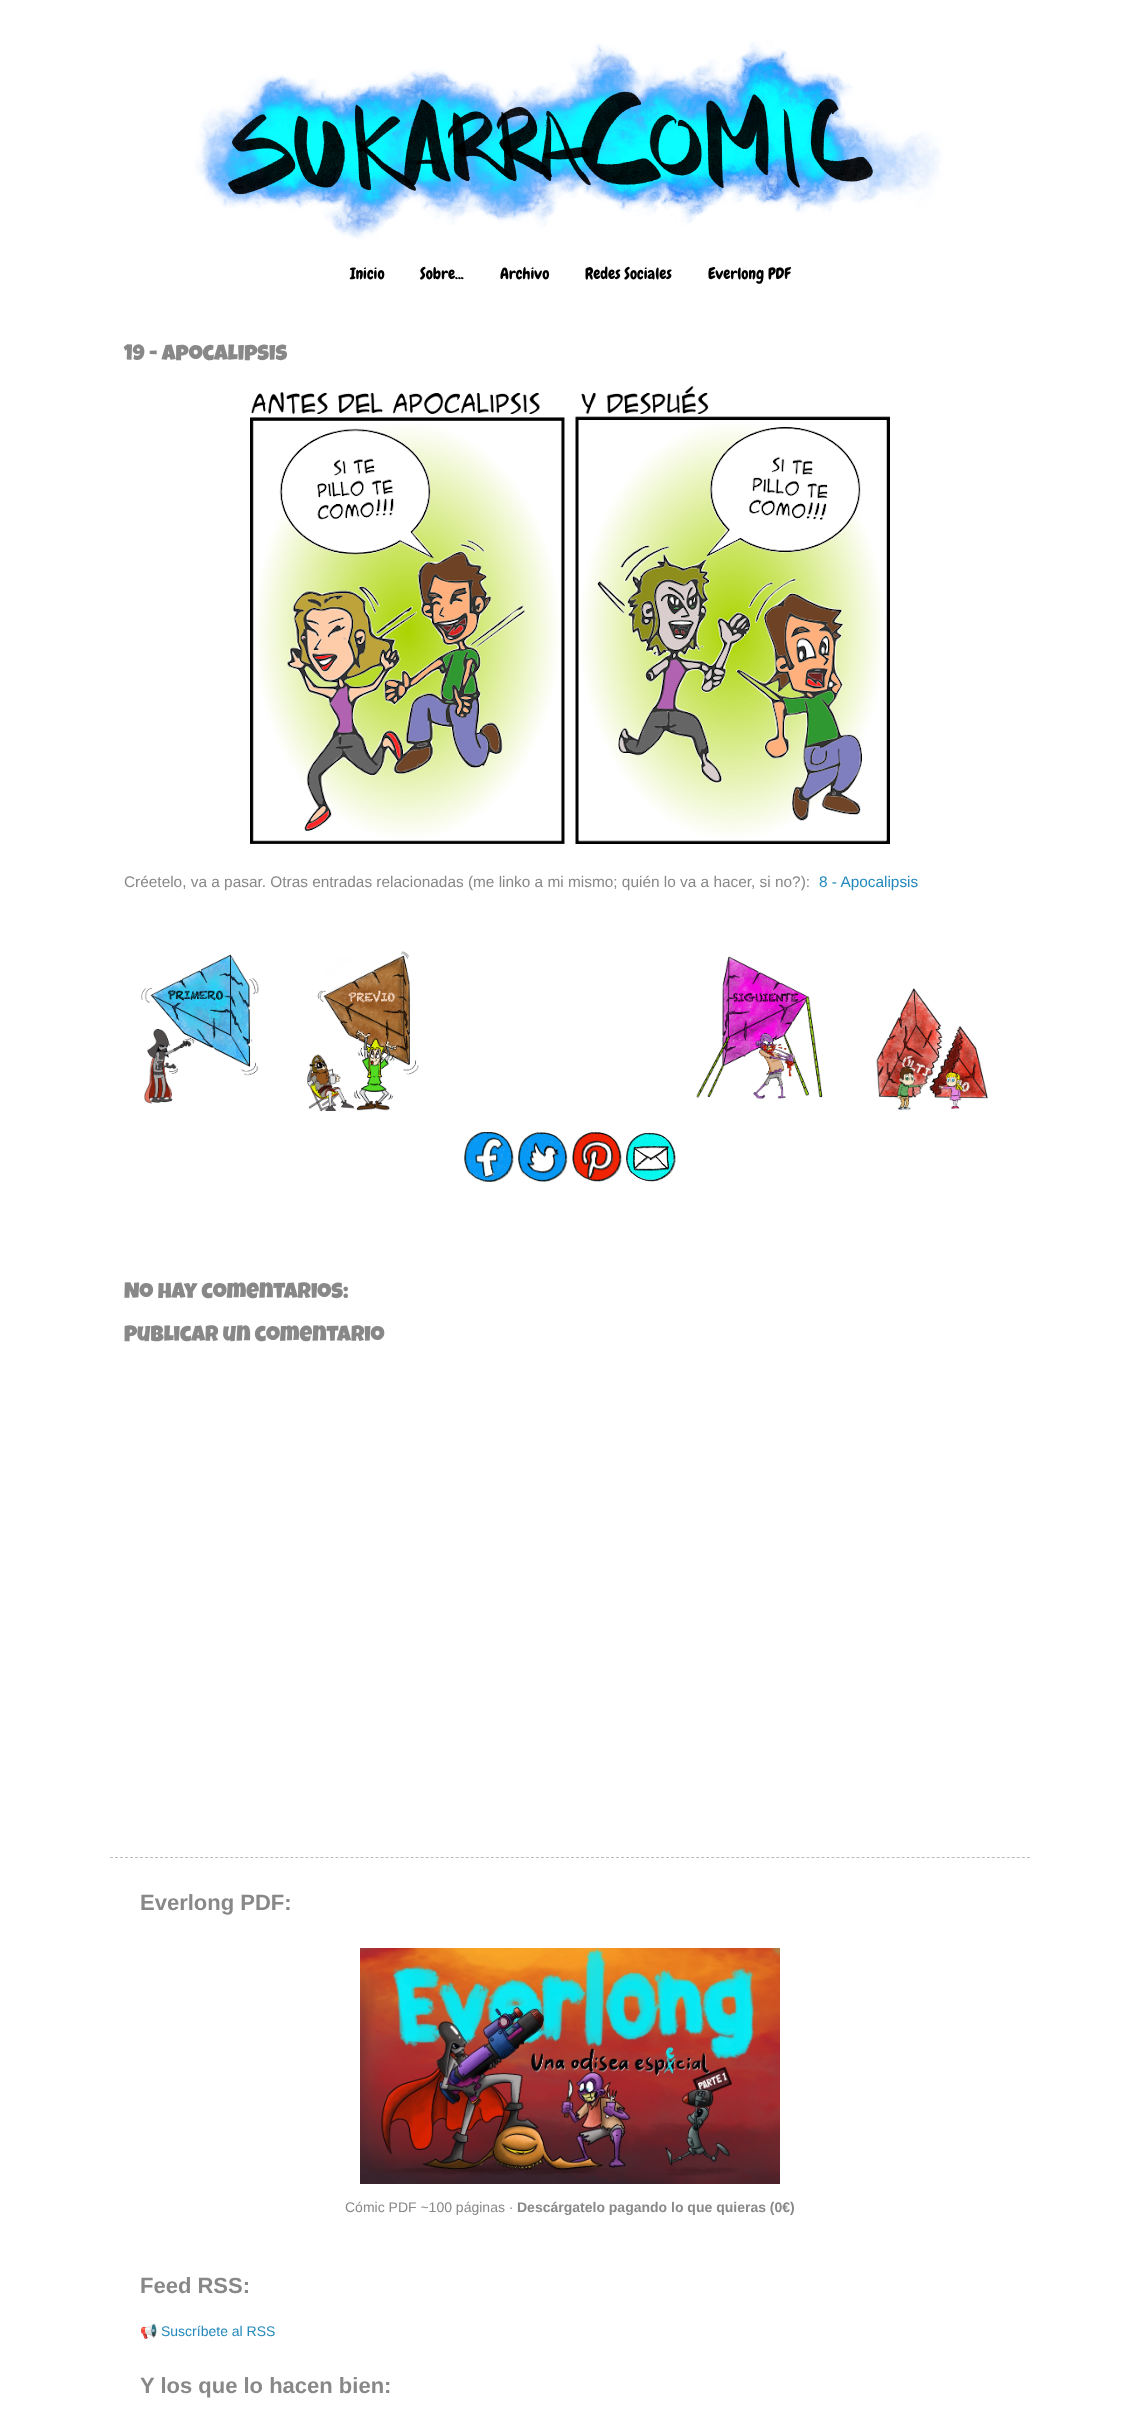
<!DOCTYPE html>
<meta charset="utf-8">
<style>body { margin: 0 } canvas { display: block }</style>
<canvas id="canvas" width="1140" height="2417"></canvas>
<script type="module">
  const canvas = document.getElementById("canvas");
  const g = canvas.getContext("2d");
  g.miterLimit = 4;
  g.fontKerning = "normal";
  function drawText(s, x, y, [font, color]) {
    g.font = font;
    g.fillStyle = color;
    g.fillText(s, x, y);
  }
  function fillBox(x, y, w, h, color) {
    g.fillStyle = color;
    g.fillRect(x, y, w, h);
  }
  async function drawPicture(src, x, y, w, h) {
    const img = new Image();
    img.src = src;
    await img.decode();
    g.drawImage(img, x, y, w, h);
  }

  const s1 = ["16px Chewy", "#000000"];
  const s2 = ["22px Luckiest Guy", "#888888"];
  const s3 = ["15.4px Liberation Sans", "#888888"];
  const s4 = ["15.4px Liberation Sans", "#2288BB"];
  const s5 = ["bold 22px Liberation Sans", "#888888"];
  const s6 = ["14px Liberation Sans", "#888888"];
  const s7 = ["bold 14px Liberation Sans", "#888888"];
  const s8 = ["14px Noto Color Emoji", "#2288BB"];
  const s9 = ["14px Liberation Sans", "#2288BB"];

  fillBox(0, 0, 1140, 2417, "#FFFFFF");
  await drawPicture("pic1.png", 195, 40, 748, 200);
  drawText("Inicio", 350, 279, s1);
  drawText("Sobre...", 420, 279, s1);
  drawText("Archivo", 500, 279, s1);
  drawText("Redes Sociales", 585, 279, s1);
  drawText("Everlong PDF", 708, 279, s1);
  drawText("19 - Apocalipsis", 124, 360, s2);
  await drawPicture("pic2.png", 250, 386, 640, 458);
  drawText("Créetelo, va a pasar. Otras entradas relacionadas (me linko a mi mismo; quién lo va a hacer, si no?):", 124, 887, s3);
  drawText("8 - Apocalipsis", 819, 887, s4);
  await drawPicture("pic3.png", 141, 954, 118, 150);
  await drawPicture("pic4.png", 307, 951, 112, 160);
  await drawPicture("pic5.png", 696, 956, 127, 143);
  await drawPicture("pic6.png", 876, 988, 112, 123);
  await drawPicture("pic7.png", 464, 1132, 50, 50);
  await drawPicture("pic8.png", 518, 1132, 50, 50);
  await drawPicture("pic9.png", 572, 1132, 50, 50);
  await drawPicture("pic10.png", 626, 1132, 50, 50);
  drawText("No hay comentarios:", 124, 1298, s2);
  drawText("Publicar un comentario", 124, 1341, s2);
  g.beginPath();
  g.moveTo(110, 1857.5);
  g.lineTo(1030, 1857.5);
  g.strokeStyle = "#BBBBBB";
  g.setLineDash([3, 2.01]);
  g.stroke();
  drawText("Everlong PDF:", 140, 1910, s5);
  await drawPicture("pic11.png", 360, 1948, 420, 236);
  drawText("Cómic PDF ~100 páginas ·", 345, 2212, s6);
  drawText("Descárgatelo pagando lo que quieras (0€)", 517, 2212, s7);
  drawText("Feed RSS:", 140, 2293, s5);
  drawText("📢", 140, 2336, s8);
  drawText("Suscríbete al RSS", 161, 2336, s9);
  drawText("Y los que lo hacen bien:", 140, 2393, s5);
</script>
